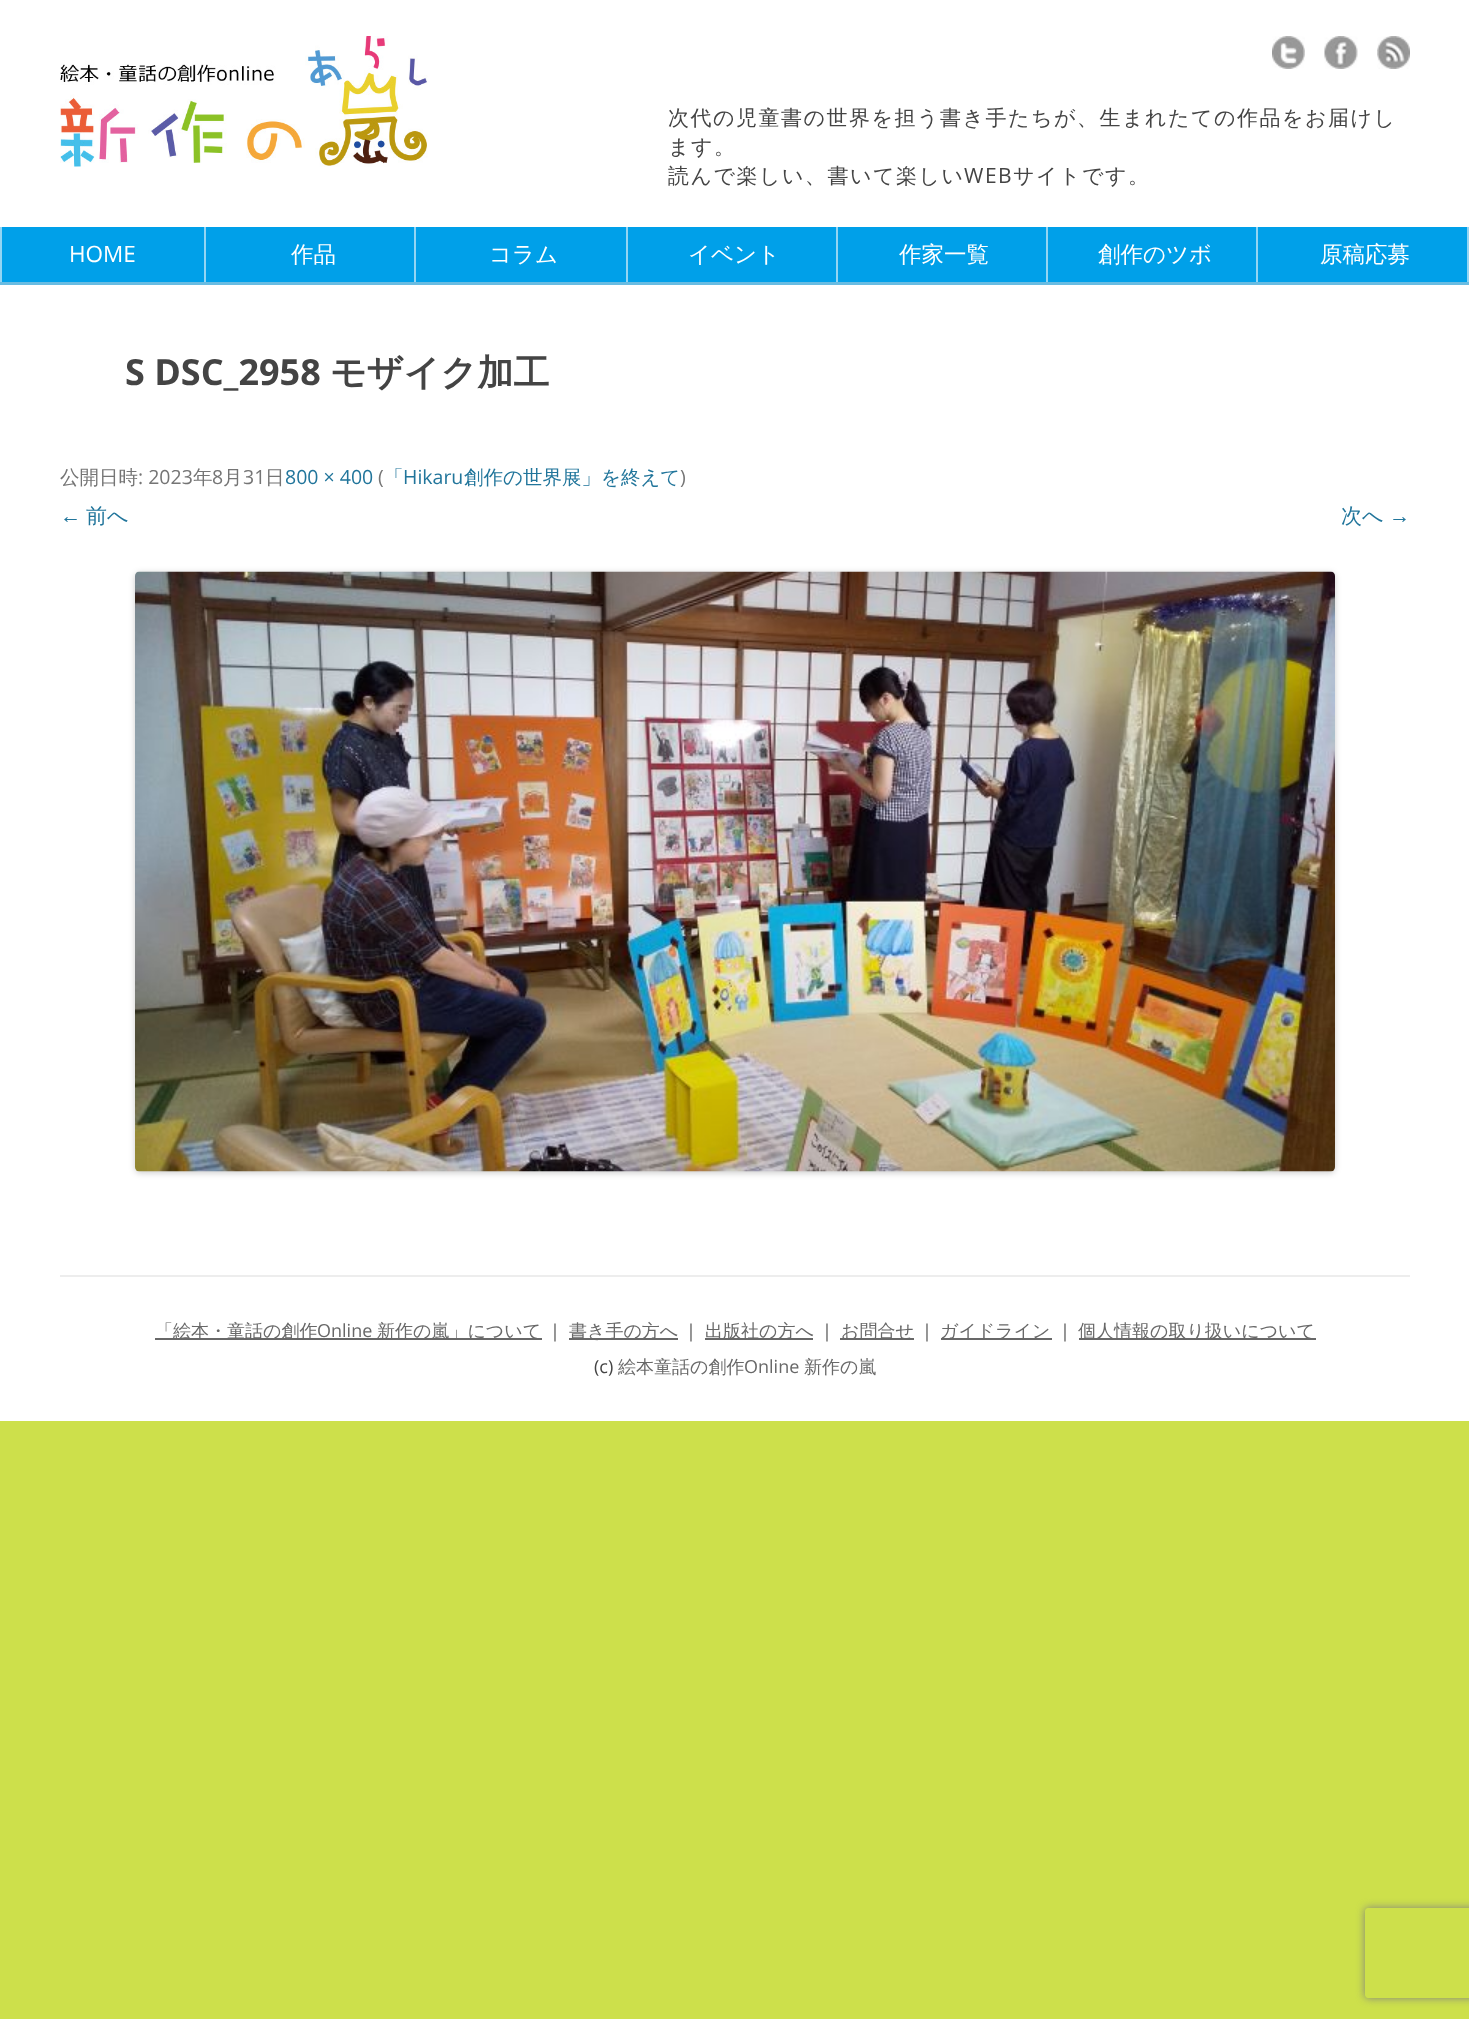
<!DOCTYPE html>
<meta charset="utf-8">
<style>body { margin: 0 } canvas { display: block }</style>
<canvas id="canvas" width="1469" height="2019"></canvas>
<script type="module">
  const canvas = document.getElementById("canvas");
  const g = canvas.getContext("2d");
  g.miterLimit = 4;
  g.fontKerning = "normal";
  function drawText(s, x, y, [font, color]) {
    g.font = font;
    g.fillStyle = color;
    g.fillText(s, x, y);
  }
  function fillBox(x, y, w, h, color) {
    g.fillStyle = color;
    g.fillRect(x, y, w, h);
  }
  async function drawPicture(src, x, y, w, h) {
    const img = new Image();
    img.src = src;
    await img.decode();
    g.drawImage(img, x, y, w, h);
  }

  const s1 = ["500 21px WenQuanYi Zen Hei", "#444444"];
  const s2 = ["21px Open Sans", "#444444"];
  const s3 = ["22.5px Open Sans", "#FFFFFF"];
  const s4 = ["500 22.5px WenQuanYi Zen Hei", "#FFFFFF"];
  const s5 = ["bold 36px Open Sans", "#444444"];
  const s6 = ["bold 36px WenQuanYi Zen Hei", "#444444"];
  const s7 = ["500 19.5px WenQuanYi Zen Hei", "#757575"];
  const s8 = ["19.5px Open Sans", "#757575"];
  const s9 = ["19.5px Open Sans", "#21759B"];
  const s10 = ["500 19.5px WenQuanYi Zen Hei", "#21759B"];
  const s11 = ["21px Liberation Sans", "#21759B"];
  const s12 = ["500 21px WenQuanYi Zen Hei", "#21759B"];
  const s13 = ["500 18px WenQuanYi Zen Hei", "#686868"];
  const s14 = ["18px Open Sans", "#686868"];
  const s15 = ["500 18px WenQuanYi Zen Hei", "#444444"];
  const s16 = ["18px Open Sans", "#444444"];

  fillBox(0, 0, 1469, 2019, "#CDE04B");
  fillBox(0, 0, 1469, 227, "#FFFFFF");
  await drawPicture("pic1.png", 60, 36, 368, 131);
  await drawPicture("pic2.png", 1272, 36, 33, 33);
  await drawPicture("pic3.png", 1324, 36, 34, 33);
  await drawPicture("pic4.png", 1377, 36, 33, 33);
  g.letterSpacing = "1.5px";
  drawText("次代の児童書の世界を担う書き手たちが、生まれたての作品をお届けし", 668, 125, s1);
  drawText("ます。", 668, 154, s1);
  drawText("読んで楽しい、書いて楽しい", 668, 183, s1);
  drawText("WEB", 964, 183, s2);
  drawText("サイトです。", 1013, 183, s1);
  fillBox(2, 227, 1465, 55, "#00A0E9");
  fillBox(0, 282, 1469, 3, "#69BCE2");
  fillBox(0, 227, 2, 55, "#93D5F3");
  fillBox(204, 227, 2, 55, "#93D5F3");
  g.letterSpacing = "0px";
  drawText("HOME", 69, 262, s3);
  fillBox(414, 227, 2, 55, "#93D5F3");
  drawText("作品", 291, 262, s4);
  fillBox(626, 227, 2, 55, "#93D5F3");
  drawText("コラム", 489, 262, s4);
  fillBox(836, 227, 2, 55, "#93D5F3");
  drawText("イベント", 688, 262, s4);
  fillBox(1046, 227, 2, 55, "#93D5F3");
  drawText("作家一覧", 899, 262, s4);
  fillBox(1256, 227, 2, 55, "#93D5F3");
  drawText("創作のツボ", 1098, 262, s4);
  fillBox(1467, 227, 2, 55, "#93D5F3");
  drawText("原稿応募", 1320, 262, s4);
  fillBox(0, 285, 1469, 1136, "#FFFFFF");
  drawText("S DSC_2958", 125, 385, s5);
  drawText("モザイク加工", 330, 385, s6);
  drawText("公開日時", 60, 484, s7);
  drawText(": 2023", 138, 484, s8);
  drawText("年", 193, 484, s7);
  drawText("8", 212, 484, s8);
  drawText("月", 223, 484, s7);
  drawText("31", 243, 484, s8);
  drawText("日", 265, 484, s7);
  drawText("800 × 400", 285, 484, s9);
  drawText("(", 378, 484, s8);
  drawText("「", 384, 484, s10);
  drawText("Hikaru", 403, 484, s9);
  drawText("創作の世界展」を終えて", 464, 484, s10);
  drawText(")", 680, 484, s8);
  drawText("←", 60, 523, s11);
  drawText("前へ", 86, 523, s12);
  drawText("次へ", 1341, 523, s12);
  drawText("→", 1389, 523, s11);
  g.fillStyle = "rgba(0, 0, 0, 0.2)";
  g.filter = "blur(3px)";
  g.beginPath();
  g.roundRect(135, 573, 1200, 600, 5);
  g.fill();
  g.filter = "none";
  await drawPicture("pic5.png", 135, 571, 1200, 601);
  fillBox(60, 1275, 1350, 2, "#EDEDED");
  fillBox(155, 1338, 387, 2, "#686868");
  drawText("「絵本・童話の創作", 155, 1337, s13);
  drawText("Online", 317, 1337, s14);
  drawText("新作の嵐」について", 377, 1337, s13);
  drawText("｜", 546, 1337, s15);
  fillBox(569, 1338, 109, 2, "#686868");
  drawText("書き手の方へ", 569, 1337, s13);
  drawText("｜", 682, 1337, s15);
  fillBox(705, 1338, 108, 2, "#686868");
  drawText("出版社の方へ", 705, 1337, s13);
  drawText("｜", 818, 1337, s15);
  fillBox(840, 1338, 74, 2, "#686868");
  drawText("お問合せ", 841, 1337, s13);
  drawText("｜", 918, 1337, s15);
  fillBox(941, 1338, 111, 2, "#686868");
  drawText("ガイドライン", 940, 1337, s13);
  drawText("｜", 1056, 1337, s15);
  fillBox(1079, 1338, 237, 2, "#686868");
  drawText("個人情報の取り扱いについて", 1078, 1337, s13);
  drawText("(c)", 594, 1373, s16);
  drawText("絵本童話の創作", 618, 1373, s13);
  drawText("Online", 744, 1373, s14);
  drawText("新作の嵐", 804, 1373, s13);
  g.save();
  g.beginPath();
  g.moveTo(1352, 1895);
  g.lineTo(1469, 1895);
  g.lineTo(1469, 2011);
  g.lineTo(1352, 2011);
  g.closePath();
  g.moveTo(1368, 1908);
  g.lineTo(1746, 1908);
  g.bezierCurveTo(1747.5, 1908, 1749, 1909.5, 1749, 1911);
  g.lineTo(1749, 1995);
  g.bezierCurveTo(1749, 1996.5, 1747.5, 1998, 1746, 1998);
  g.lineTo(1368, 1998);
  g.bezierCurveTo(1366.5, 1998, 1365, 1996.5, 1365, 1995);
  g.lineTo(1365, 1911);
  g.bezierCurveTo(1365, 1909.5, 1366.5, 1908, 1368, 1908);
  g.closePath();
  g.clip("evenodd");
  g.fillStyle = "#808080";
  g.filter = "blur(4px)";
  g.beginPath();
  g.roundRect(1365, 1908, 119, 90, 3);
  g.fill();
  g.filter = "none";
  g.restore();
</script>
